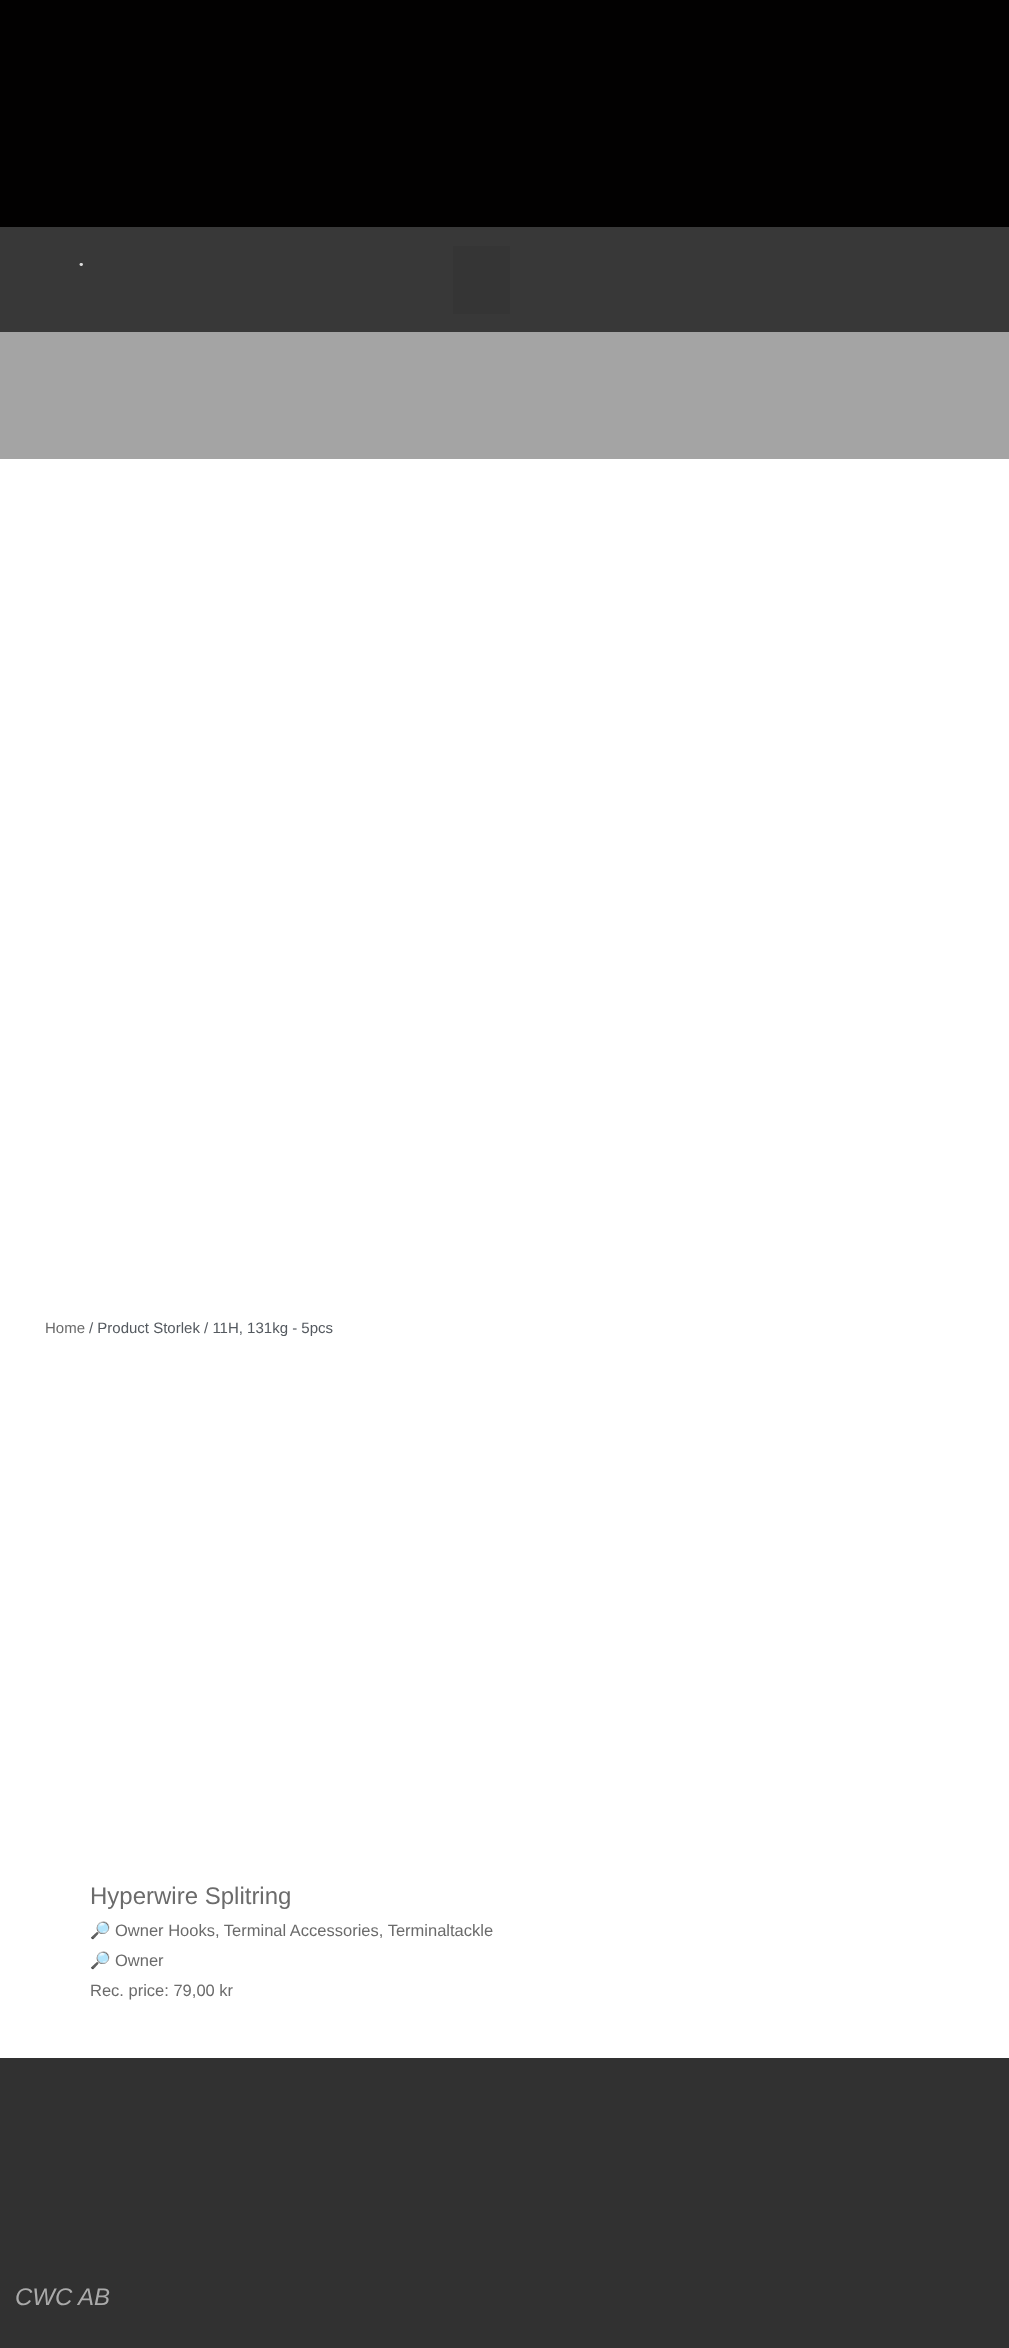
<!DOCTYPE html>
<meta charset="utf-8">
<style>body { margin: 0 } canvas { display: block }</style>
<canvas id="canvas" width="1009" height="2348"></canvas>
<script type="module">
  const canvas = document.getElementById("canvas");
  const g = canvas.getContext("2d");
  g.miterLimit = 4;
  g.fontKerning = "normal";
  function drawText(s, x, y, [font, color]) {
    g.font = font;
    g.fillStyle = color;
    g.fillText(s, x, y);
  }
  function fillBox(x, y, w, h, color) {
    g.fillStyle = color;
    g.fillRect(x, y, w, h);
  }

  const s1 = ["15px Liberation Sans", "#6B6B6B"];
  const s2 = ["15px Liberation Sans", "#54595F"];
  const s3 = ["24px Liberation Sans", "#6B6B6B"];
  const s4 = ["16.5px Noto Color Emoji", "#6B6B6B"];
  const s5 = ["16.5px Liberation Sans", "#6B6B6B"];
  const s6 = ["italic 24px Liberation Sans", "#AAAAAA"];

  fillBox(0, 0, 1009, 2348, "#FFFFFF");
  fillBox(0, 0, 1009, 227, "#020101");
  fillBox(0, 227, 1009, 105, "#383838");
  g.beginPath();
  g.moveTo(81, 264.5);
  g.lineTo(81.5, 264.5);
  g.strokeStyle = "#DDDDDD";
  g.lineWidth = 2.9;
  g.lineCap = "round";
  g.stroke();
  fillBox(453, 246, 57, 68, "#353535");
  fillBox(0, 332, 1009, 127, "#A4A4A4");
  drawText("Home", 45, 1333, s1);
  drawText("/ Product Storlek / 11H, 131kg - 5pcs", 89, 1333, s2);
  drawText("Hyperwire Splitring", 90, 1904, s3);
  drawText("🔎", 90, 1936, s4);
  drawText("Owner Hooks, Terminal Accessories, Terminaltackle", 115, 1936, s5);
  drawText("🔎", 90, 1966, s4);
  drawText("Owner", 115, 1966, s5);
  drawText("Rec. price: 79,00 kr", 90, 1996, s5);
  fillBox(0, 2058, 1009, 290, "#313131");
  drawText("CWC AB", 15, 2305, s6);
</script>
